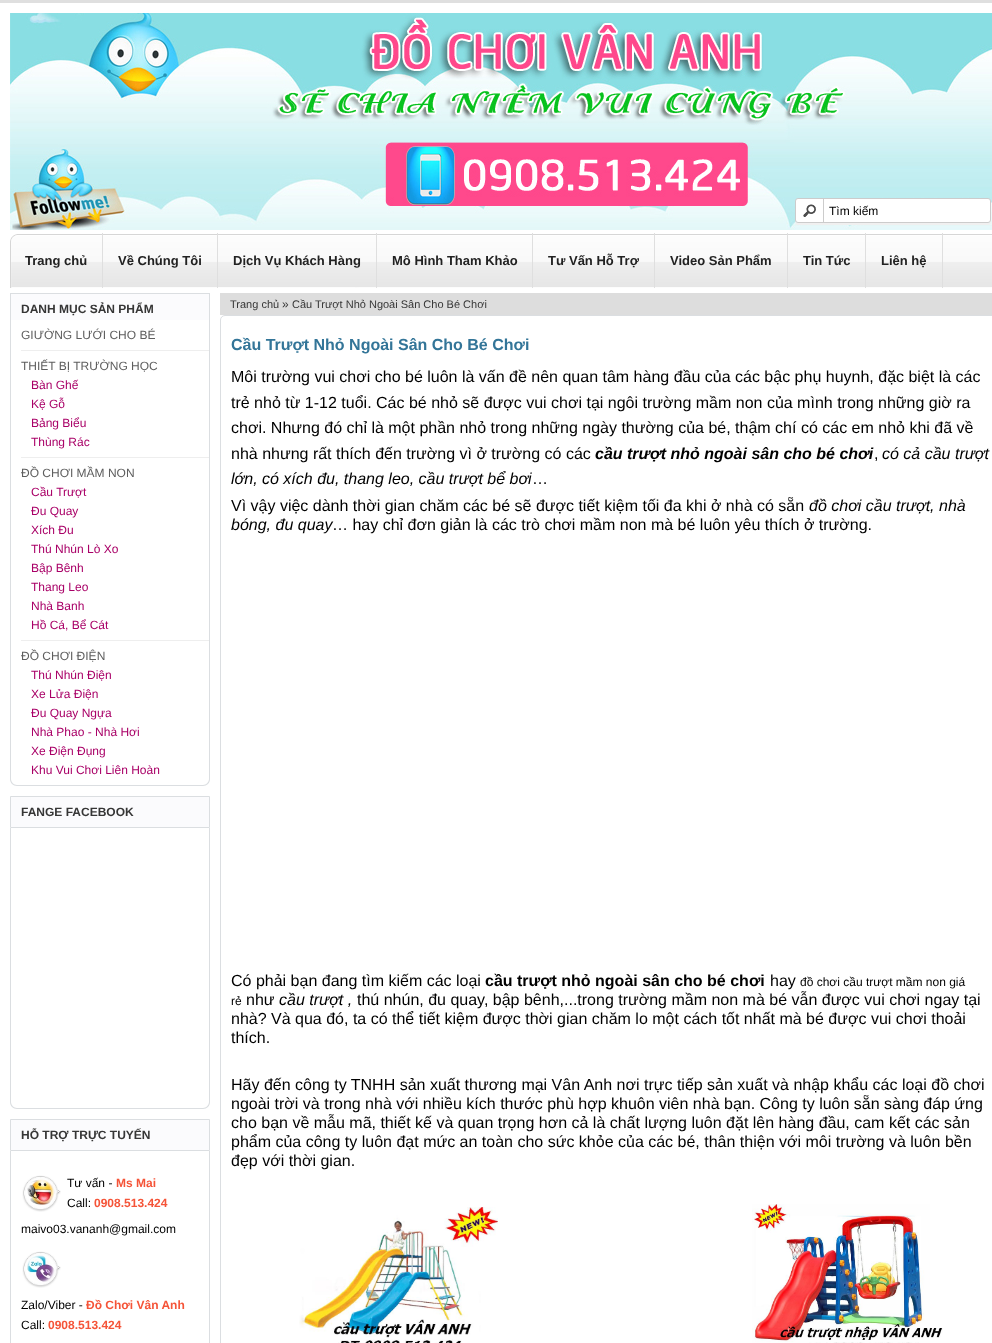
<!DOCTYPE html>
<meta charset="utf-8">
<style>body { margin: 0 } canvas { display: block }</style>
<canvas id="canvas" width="992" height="1343"></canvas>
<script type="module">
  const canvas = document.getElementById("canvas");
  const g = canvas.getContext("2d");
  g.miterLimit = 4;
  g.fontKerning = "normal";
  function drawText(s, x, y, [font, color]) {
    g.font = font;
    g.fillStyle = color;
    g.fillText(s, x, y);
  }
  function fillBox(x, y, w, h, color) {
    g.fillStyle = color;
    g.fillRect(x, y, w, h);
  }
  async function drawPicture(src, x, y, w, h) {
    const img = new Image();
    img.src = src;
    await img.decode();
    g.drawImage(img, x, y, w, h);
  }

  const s1 = ["12px Liberation Sans", "#000000"];
  const s2 = ["bold 13px Liberation Sans", "#222222"];
  const s3 = ["bold 12px Liberation Sans", "#363636"];
  const s4 = ["12px Liberation Sans", "#5E5E5E"];
  const s5 = ["12px Liberation Sans", "#A90067"];
  const s6 = ["bold 12px Liberation Sans", "#F55438"];
  const s7 = ["11px Liberation Sans", "#363636"];
  const s8 = ["12px Liberation Sans", "#363636"];
  const s9 = ["bold 16px Liberation Sans", "#337598"];
  const s10 = ["16px Liberation Sans", "#000000"];
  const s11 = ["italic bold 16px Liberation Sans", "#000000"];
  const s12 = ["italic 16px Liberation Sans", "#000000"];
  const s13 = ["bold 16px Liberation Sans", "#000000"];

  fillBox(0, 0, 992, 1343, "#FFFFFF");
  fillBox(0, 0, 992, 3, "#DFDFDF");
  await drawPicture("pic1.png", 10, 13, 982, 217);
  g.fillStyle = "#F0F0F0";
  g.beginPath();
  g.moveTo(795, 220);
  g.bezierCurveTo(795, 222, 795, 224, 797, 225);
  g.lineTo(989, 225);
  g.bezierCurveTo(991, 224, 991, 222, 991, 220);
  g.bezierCurveTo(991, 222, 990, 223, 988, 223);
  g.lineTo(798, 223);
  g.bezierCurveTo(796, 223, 795, 222, 795, 220);
  g.closePath();
  g.fill();
  g.fillStyle = "#FFFFFF";
  g.beginPath();
  g.roundRect(795.5, 198.5, 195, 24, 2.5);
  g.fill();
  g.strokeStyle = "#CCCCCC";
  g.stroke();
  await drawPicture("pic2.png", 803, 204, 13, 13);
  fillBox(823, 198, 1, 25, "#CCCCCC");
  drawText("Tìm kiếm", 829, 215, s1);
  await drawPicture("pic3.png", 10, 234, 982, 54);
  fillBox(102, 233, 1, 55, "#DFDFDF");
  drawText("Trang chủ", 25, 265, s2);
  fillBox(217, 233, 1, 55, "#DFDFDF");
  drawText("Về Chúng Tôi", 118, 265, s2);
  fillBox(376, 233, 1, 55, "#DFDFDF");
  drawText("Dịch Vụ Khách Hàng", 233, 265, s2);
  fillBox(532, 233, 1, 55, "#DFDFDF");
  drawText("Mô Hình Tham Khảo", 392, 265, s2);
  fillBox(654, 233, 1, 55, "#DFDFDF");
  drawText("Tư Vấn Hỗ Trợ", 548, 265, s2);
  fillBox(787, 233, 1, 55, "#DFDFDF");
  drawText("Video Sản Phẩm", 670, 265, s2);
  fillBox(865, 233, 1, 55, "#DFDFDF");
  drawText("Tin Tức", 803, 265, s2);
  fillBox(942, 233, 1, 55, "#DFDFDF");
  drawText("Liên hệ", 881, 265, s2);
  fillBox(11, 294, 198, 26, "#FBFBFD");
  g.strokeStyle = "#DBDEE1";
  g.strokeRect(10.5, 293.5, 199, 31);
  drawText("DANH MỤC SẢN PHẨM", 21, 313, s3);
  g.fillStyle = "#FFFFFF";
  g.beginPath();
  g.roundRect(10, 320, 200, 466, [0, 0, 7, 7]);
  g.fill();
  g.fillStyle = "#DBDEE1";
  g.beginPath();
  g.moveTo(10, 320);
  g.lineTo(210, 320);
  g.lineTo(210, 779);
  g.bezierCurveTo(210, 783, 207, 786, 203, 786);
  g.lineTo(17, 786);
  g.bezierCurveTo(13, 786, 10, 783, 10, 779);
  g.closePath();
  g.moveTo(11, 320);
  g.lineTo(209, 320);
  g.lineTo(209, 779);
  g.bezierCurveTo(209, 782, 206, 785, 203, 785);
  g.lineTo(17, 785);
  g.bezierCurveTo(14, 785, 11, 782, 11, 779);
  g.closePath();
  g.fill("evenodd");
  drawText("GIƯỜNG LƯỚI CHO BÉ", 21, 339, s4);
  fillBox(21, 350, 188, 1, "#EEEEEE");
  drawText("THIẾT BỊ TRƯỜNG HỌC", 21, 370, s4);
  drawText("Bàn Ghế", 31, 389, s5);
  drawText("Kệ Gỗ", 31, 408, s5);
  drawText("Bảng Biểu", 31, 427, s5);
  drawText("Thùng Rác", 31, 446, s5);
  fillBox(21, 457, 188, 1, "#EEEEEE");
  drawText("ĐỒ CHƠI MẦM NON", 21, 477, s4);
  drawText("Cầu Trượt", 31, 496, s5);
  drawText("Đu Quay", 31, 515, s5);
  drawText("Xích Đu", 31, 534, s5);
  drawText("Thú Nhún Lò Xo", 31, 553, s5);
  drawText("Bập Bênh", 31, 572, s5);
  drawText("Thang Leo", 31, 591, s5);
  drawText("Nhà Banh", 31, 610, s5);
  drawText("Hồ Cá, Bể Cát", 31, 629, s5);
  fillBox(21, 640, 188, 1, "#EEEEEE");
  drawText("ĐỒ CHƠI ĐIỆN", 21, 660, s4);
  drawText("Thú Nhún Điện", 31, 679, s5);
  drawText("Xe Lửa Điện", 31, 698, s5);
  drawText("Đu Quay Ngựa", 31, 717, s5);
  drawText("Nhà Phao - Nhà Hơi", 31, 736, s5);
  drawText("Xe Điện Đụng", 31, 755, s5);
  drawText("Khu Vui Chơi Liên Hoàn", 31, 774, s5);
  g.fillStyle = "#FBFBFD";
  g.beginPath();
  g.rect(10.5, 796.5, 199, 31);
  g.fill();
  g.stroke();
  drawText("FANGE FACEBOOK", 21, 816, s3);
  g.fillStyle = "#DBDEE1";
  g.beginPath();
  g.moveTo(10, 828);
  g.lineTo(210, 828);
  g.lineTo(210, 1102);
  g.bezierCurveTo(210, 1106, 207, 1109, 203, 1109);
  g.lineTo(17, 1109);
  g.bezierCurveTo(13, 1109, 10, 1106, 10, 1102);
  g.closePath();
  g.moveTo(11, 828);
  g.lineTo(209, 828);
  g.lineTo(209, 1102);
  g.bezierCurveTo(209, 1105, 206, 1108, 203, 1108);
  g.lineTo(17, 1108);
  g.bezierCurveTo(14, 1108, 11, 1105, 11, 1102);
  g.closePath();
  g.fill("evenodd");
  g.fillStyle = "#FBFBFD";
  g.beginPath();
  g.rect(10.5, 1119.5, 199, 31);
  g.fill();
  g.stroke();
  drawText("HỖ TRỢ TRỰC TUYẾN", 21, 1139, s3);
  g.fillStyle = "#DBDEE1";
  g.beginPath();
  g.moveTo(10, 1151);
  g.lineTo(210, 1151);
  g.lineTo(210, 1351);
  g.bezierCurveTo(210, 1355, 207, 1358, 203, 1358);
  g.lineTo(17, 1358);
  g.bezierCurveTo(13, 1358, 10, 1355, 10, 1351);
  g.closePath();
  g.moveTo(11, 1151);
  g.lineTo(209, 1151);
  g.lineTo(209, 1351);
  g.bezierCurveTo(209, 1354, 206, 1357, 203, 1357);
  g.lineTo(17, 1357);
  g.bezierCurveTo(14, 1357, 11, 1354, 11, 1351);
  g.closePath();
  g.fill("evenodd");
  await drawPicture("pic4.png", 22, 1175, 39, 37);
  await drawPicture("pic5.png", 26, 1179, 29, 26);
  drawText("Tư vấn -", 67, 1187, s1);
  drawText("Ms Mai", 116, 1187, s6);
  drawText("Call:", 67, 1207, s1);
  drawText("0908.513.424", 94, 1207, s6);
  drawText("maivo03.vananh@gmail.com", 21, 1233, s1);
  await drawPicture("pic6.png", 22, 1251, 39, 37);
  await drawPicture("pic7.png", 26, 1255, 29, 27);
  drawText("Zalo/Viber -", 21, 1309, s1);
  drawText("Đồ Chơi Vân Anh", 86, 1309, s6);
  drawText("Call:", 21, 1329, s1);
  drawText("0908.513.424", 48, 1329, s6);
  fillBox(220, 293, 772, 22, "#DDDDDD");
  drawText("Trang chủ", 230, 308, s7);
  drawText("»", 282, 308, s8);
  drawText("Cầu Trượt Nhỏ Ngoài Sân Cho Bé Chơi", 292, 308, s7);
  g.beginPath();
  g.roundRect(220.5, 315.5, 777, 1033, 4.5);
  g.stroke();
  drawText("Cầu Trượt Nhỏ Ngoài Sân Cho Bé Chơi", 231, 350, s9);
  drawText("Môi trường vui chơi cho bé luôn là vấn đề nên quan tâm hàng đầu của các bậc phụ huynh, đặc biệt là các", 231, 382, s10);
  drawText("trẻ nhỏ từ 1-12 tuổi. Các bé nhỏ sẽ được vui chơi tại ngôi trường mầm non của mình trong những giờ ra", 231, 408, s10);
  drawText("chơi. Nhưng đó chỉ là một phần nhỏ trong những ngày thường của bé, thậm chí có các em nhỏ khi đã về", 231, 433, s10);
  drawText("nhà nhưng rất thích đến trường vì ở trường có các", 231, 459, s10);
  drawText("cầu trượt nhỏ ngoài sân cho bé chơi", 595, 459, s11);
  drawText(",", 874, 459, s10);
  drawText("có cả cầu trượt", 882, 459, s12);
  drawText("lớn, có xích đu, thang leo, cầu trượt bể bơi", 231, 484, s12);
  drawText("…", 532, 484, s10);
  drawText("Vì vậy việc dành thời gian chăm các bé sẽ được tiết kiệm tối đa khi ở nhà có sẵn", 231, 511, s10);
  drawText("đồ chơi cầu trượt, nhà", 809, 511, s12);
  drawText("bóng, đu quay", 231, 530, s12);
  drawText("… hay chỉ đơn giản là các trò chơi mầm non mà bé luôn yêu thích ở trường.", 332, 530, s10);
  drawText("Có phải bạn đang tìm kiếm các loại", 231, 986, s10);
  drawText("cầu trượt nhỏ ngoài sân cho bé chơi", 485, 986, s13);
  drawText("hay", 770, 986, s10);
  drawText("đồ chơi cầu trượt mầm non giá", 800, 986, s1);
  drawText("rẻ", 231, 1005, s1);
  drawText("như", 246, 1005, s10);
  drawText("cầu trượt ,", 279, 1005, s12);
  drawText("thú nhún, đu quay, bập bênh,...trong trường mầm non mà bé vẫn được vui chơi ngay tại", 357, 1005, s10);
  drawText("nhà? Và qua đó, ta có thể tiết kiệm được thời gian chăm lo một cách tốt nhất mà bé được vui chơi thoải", 231, 1024, s10);
  drawText("thích.", 231, 1043, s10);
  drawText("Hãy đến công ty TNHH sản xuất thương mại Vân Anh nơi trực tiếp sản xuất và nhập khẩu các loại đồ chơi", 231, 1090, s10);
  drawText("ngoài trời và trong nhà với nhiều kích thước phù hợp khuôn viên nhà bạn. Công ty luôn sẵn sàng đáp ứng", 231, 1109, s10);
  drawText("cho bạn về mẫu mã, thiết kế và quan trọng hơn cả là chất lượng luôn đặt lên hàng đầu, cam kết các sản", 231, 1128, s10);
  drawText("phẩm của công ty luôn đạt mức an toàn cho sức khỏe của các bé, thân thiện với môi trường và luôn bền", 231, 1147, s10);
  drawText("đẹp với thời gian.", 231, 1166, s10);
  await drawPicture("pic8.png", 299, 1207, 199, 136);
  await drawPicture("pic9.png", 752, 1204, 191, 139);
</script>
